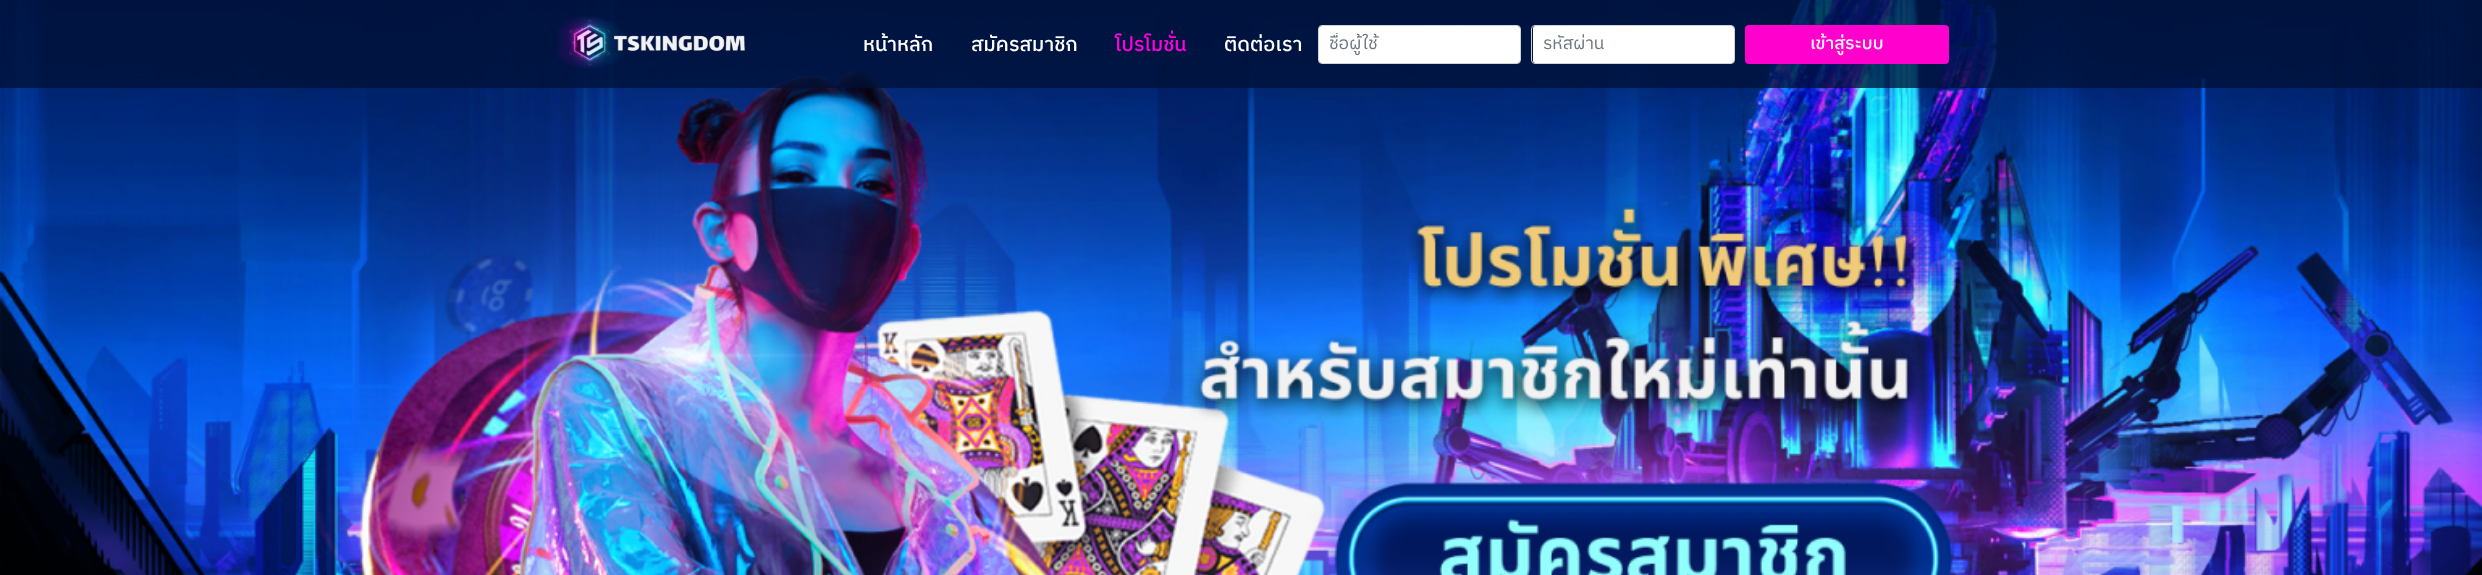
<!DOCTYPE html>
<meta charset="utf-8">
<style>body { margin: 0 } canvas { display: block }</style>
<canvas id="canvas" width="2482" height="575"></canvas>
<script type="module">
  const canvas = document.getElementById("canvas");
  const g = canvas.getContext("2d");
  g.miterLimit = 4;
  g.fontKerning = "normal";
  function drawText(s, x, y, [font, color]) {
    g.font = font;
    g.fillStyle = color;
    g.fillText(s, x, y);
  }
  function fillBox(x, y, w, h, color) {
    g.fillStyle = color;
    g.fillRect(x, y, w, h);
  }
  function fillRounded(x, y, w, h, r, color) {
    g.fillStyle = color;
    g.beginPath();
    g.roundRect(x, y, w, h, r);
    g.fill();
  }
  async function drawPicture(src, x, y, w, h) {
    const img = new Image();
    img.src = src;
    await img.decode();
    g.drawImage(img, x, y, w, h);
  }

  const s1 = ["500 20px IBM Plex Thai", "#FFFFFF"];
  const s2 = ["500 20px IBM Plex Thai", "#FF00DE"];
  const s3 = ["17.5px IBM Plex Thai", "#6C757D"];
  const s4 = ["500 17.5px IBM Plex Thai", "#FFFFFF"];

  fillBox(0, 0, 2482, 575, "#FFFFFF");
  await drawPicture("pic1.png", 0, 0, 2482, 575);
  fillBox(0, 0, 2482, 88, "rgba(0, 17, 55, 0.77)");
  await drawPicture("pic2.png", 557, 16, 188, 53);
  drawText("หน้าหลัก", 863, 51, s1);
  drawText("สมัครสมาชิก", 971, 51, s1);
  drawText("โปรโมชั่น", 1115, 51, s2);
  drawText("ติดต่อเรา", 1224, 51, s1);
  fillRounded(1319, 26, 201, 37, 2.5, "#FFFFFF");
  g.beginPath();
  g.roundRect(1318.5, 25.5, 202, 38, 3.5);
  g.strokeStyle = "#CED4DA";
  g.stroke();
  g.save();
  g.beginPath();
  g.rect(1329, 33, 181, 22);
  g.clip();
  drawText("ชื่อผู้ใช้", 1329, 49, s3);
  g.restore();
  fillRounded(1533, 26, 201, 37, 2.5, "#FFFFFF");
  g.beginPath();
  g.roundRect(1531.5, 25.5, 203, 38, 3.5);
  g.stroke();
  drawText("รหัสผ่าน", 1543, 49, s3);
  fillRounded(1745, 25, 204, 39, 4, "#FF00CD");
  drawText("เข้าสู่ระบบ", 1810, 49, s4);
</script>
